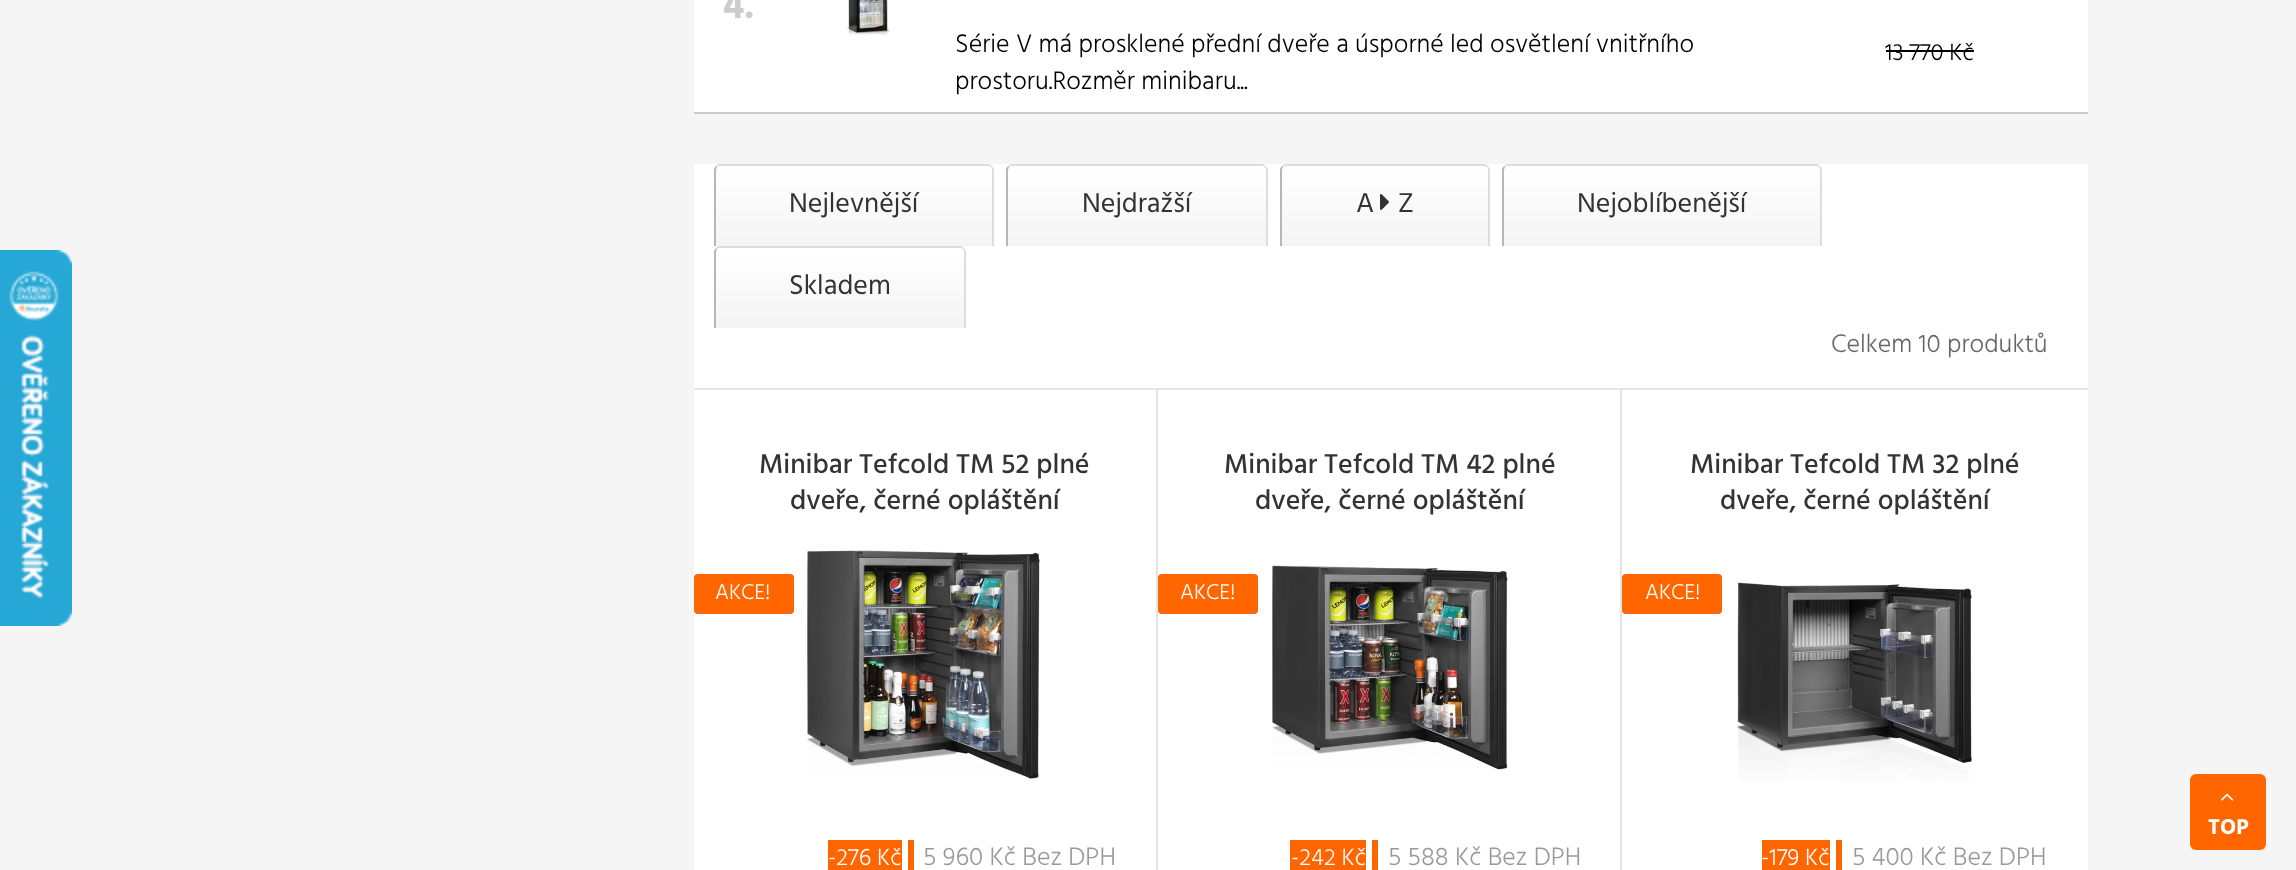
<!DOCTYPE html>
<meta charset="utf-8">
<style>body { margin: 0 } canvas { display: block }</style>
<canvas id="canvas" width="2296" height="870"></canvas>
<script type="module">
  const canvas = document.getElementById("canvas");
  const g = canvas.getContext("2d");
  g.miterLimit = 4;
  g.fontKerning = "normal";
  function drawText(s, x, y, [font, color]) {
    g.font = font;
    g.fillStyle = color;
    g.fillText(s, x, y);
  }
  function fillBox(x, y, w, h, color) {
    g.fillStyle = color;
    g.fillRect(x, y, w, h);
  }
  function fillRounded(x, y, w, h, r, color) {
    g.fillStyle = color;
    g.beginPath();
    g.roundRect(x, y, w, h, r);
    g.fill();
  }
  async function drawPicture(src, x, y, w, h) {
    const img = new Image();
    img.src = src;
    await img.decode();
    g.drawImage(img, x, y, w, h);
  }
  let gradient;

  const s1 = ["bold 38px Hind", "#CCCCCC"];
  const s2 = ["300 26px Hind", "#000000"];
  const s3 = ["300 24px Hind", "#000000"];
  const s4 = ["28px Hind", "#333333"];
  const s5 = ["300 26px Hind", "#666666"];
  const s6 = ["500 28px Hind", "#333333"];
  const s7 = ["300 22px Hind", "#FFFFFF"];
  const s8 = ["300 24px Hind", "#FFFFFF"];
  const s9 = ["300 26px Hind", "#999999"];
  const s10 = ["bold 22px Hind", "#FFFFFF"];

  fillBox(0, 0, 2296, 870, "#F5F5F5");
  await drawPicture("pic1.png", 0, 250, 72, 376);
  fillBox(694, 0, 1394, 112, "#FFFFFF");
  fillBox(694, 112, 1394, 2, "#CCCCCC");
  drawText("4.", 723, 18, s1);
  await drawPicture("pic2.png", 846, 0, 44, 36);
  drawText("Série V má prosklené přední dveře a úsporné led osvětlení vnitřního", 955, 52, s2);
  drawText("prostoru.Rozměr minibaru...", 955, 89, s2);
  drawText("13 770 Kč", 1885, 60, s3);
  fillBox(1886, 50, 88, 2, "#000000");
  fillBox(694, 164, 1394, 224, "#FFFFFF");
  g.save();
  g.beginPath();
  g.roundRect(714, 164, 280, 82, [6, 6, 0, 0]);
  g.clip();
  gradient = g.createLinearGradient(854, 166, 854, 246);
  gradient.addColorStop(0, "#FFFFFF");
  gradient.addColorStop(1, "#F4F4F4");
  g.fillStyle = gradient;
  g.fillRect(714, 166, 280, 80);
  g.restore();
  g.fillStyle = "#DDDDDD";
  g.beginPath();
  g.moveTo(720, 164);
  g.bezierCurveTo(718, 164, 717, 165, 716, 166);
  g.lineTo(717, 167);
  g.bezierCurveTo(718, 166, 719, 166, 720, 166);
  g.lineTo(988, 166);
  g.bezierCurveTo(989, 166, 990, 166, 991, 167);
  g.lineTo(992, 166);
  g.bezierCurveTo(991, 165, 990, 164, 988, 164);
  g.closePath();
  g.fill();
  g.beginPath();
  g.moveTo(992, 246);
  g.lineTo(994, 246);
  g.lineTo(994, 169);
  g.lineTo(992, 166);
  g.lineTo(991, 167);
  g.lineTo(992, 170);
  g.closePath();
  g.fill();
  g.fillStyle = "#B7B7B7";
  g.beginPath();
  g.moveTo(714, 246);
  g.lineTo(716, 246);
  g.lineTo(716, 170);
  g.lineTo(717, 167);
  g.lineTo(716, 166);
  g.bezierCurveTo(715, 167, 714, 168, 714, 170);
  g.closePath();
  g.fill();
  drawText("Nejlevnější", 789, 212, s4);
  g.save();
  g.beginPath();
  g.roundRect(1006, 164, 262, 82, [6, 6, 0, 0]);
  g.clip();
  gradient = g.createLinearGradient(1137, 166, 1137, 246);
  gradient.addColorStop(0, "#FFFFFF");
  gradient.addColorStop(1, "#F4F4F4");
  g.fillStyle = gradient;
  g.fillRect(1006, 166, 262, 80);
  g.restore();
  g.fillStyle = "#DDDDDD";
  g.beginPath();
  g.moveTo(1012, 164);
  g.bezierCurveTo(1010, 164, 1009, 165, 1008, 166);
  g.lineTo(1009, 167);
  g.bezierCurveTo(1010, 166, 1011, 166, 1012, 166);
  g.lineTo(1262, 166);
  g.bezierCurveTo(1263, 166, 1264, 166, 1265, 167);
  g.lineTo(1266, 166);
  g.bezierCurveTo(1265, 165, 1264, 164, 1262, 164);
  g.closePath();
  g.fill();
  g.beginPath();
  g.moveTo(1266, 246);
  g.lineTo(1268, 246);
  g.lineTo(1268, 169);
  g.lineTo(1266, 166);
  g.lineTo(1265, 167);
  g.lineTo(1266, 170);
  g.closePath();
  g.fill();
  g.fillStyle = "#B7B7B7";
  g.beginPath();
  g.moveTo(1006, 246);
  g.lineTo(1008, 246);
  g.lineTo(1008, 170);
  g.lineTo(1009, 167);
  g.lineTo(1008, 166);
  g.bezierCurveTo(1007, 167, 1006, 168, 1006, 170);
  g.closePath();
  g.fill();
  drawText("Nejdražší", 1082, 212, s4);
  g.save();
  g.beginPath();
  g.roundRect(1280, 164, 210, 82, [6, 6, 0, 0]);
  g.clip();
  gradient = g.createLinearGradient(1385, 166, 1385, 246);
  gradient.addColorStop(0, "#FFFFFF");
  gradient.addColorStop(1, "#F4F4F4");
  g.fillStyle = gradient;
  g.fillRect(1280, 166, 210, 80);
  g.restore();
  g.fillStyle = "#DDDDDD";
  g.beginPath();
  g.moveTo(1286, 164);
  g.bezierCurveTo(1284, 164, 1283, 165, 1282, 166);
  g.lineTo(1283, 167);
  g.lineTo(1286, 166);
  g.lineTo(1484, 166);
  g.lineTo(1487, 167);
  g.lineTo(1488, 166);
  g.bezierCurveTo(1487, 165, 1486, 164, 1484, 164);
  g.closePath();
  g.fill();
  g.beginPath();
  g.moveTo(1488, 246);
  g.lineTo(1490, 246);
  g.lineTo(1490, 169);
  g.lineTo(1488, 166);
  g.lineTo(1487, 167);
  g.lineTo(1488, 170);
  g.closePath();
  g.fill();
  g.fillStyle = "#B7B7B7";
  g.beginPath();
  g.moveTo(1280, 246);
  g.lineTo(1282, 246);
  g.lineTo(1282, 170);
  g.lineTo(1283, 167);
  g.lineTo(1282, 166);
  g.bezierCurveTo(1281, 167, 1280, 168, 1280, 170);
  g.closePath();
  g.fill();
  drawText("A", 1356, 212, s4);
  await drawPicture("pic3.png", 1380, 194, 9, 16);
  drawText("Z", 1398, 212, s4);
  g.save();
  g.beginPath();
  g.roundRect(1502, 164, 320, 82, [6, 6, 0, 0]);
  g.clip();
  gradient = g.createLinearGradient(1662, 166, 1662, 246);
  gradient.addColorStop(0, "#FFFFFF");
  gradient.addColorStop(1, "#F4F4F4");
  g.fillStyle = gradient;
  g.fillRect(1502, 166, 320, 80);
  g.restore();
  g.fillStyle = "#DDDDDD";
  g.beginPath();
  g.moveTo(1508, 164);
  g.bezierCurveTo(1506, 164, 1505, 165, 1504, 166);
  g.lineTo(1505, 167);
  g.bezierCurveTo(1506, 166, 1507, 166, 1508, 166);
  g.lineTo(1816, 166);
  g.bezierCurveTo(1817, 166, 1818, 166, 1819, 167);
  g.lineTo(1820, 166);
  g.bezierCurveTo(1819, 165, 1818, 164, 1816, 164);
  g.closePath();
  g.fill();
  g.beginPath();
  g.moveTo(1820, 246);
  g.lineTo(1822, 246);
  g.lineTo(1822, 169);
  g.lineTo(1820, 166);
  g.lineTo(1819, 167);
  g.lineTo(1820, 170);
  g.closePath();
  g.fill();
  g.fillStyle = "#B7B7B7";
  g.beginPath();
  g.moveTo(1502, 246);
  g.lineTo(1504, 246);
  g.lineTo(1504, 170);
  g.lineTo(1505, 167);
  g.lineTo(1504, 166);
  g.bezierCurveTo(1503, 167, 1502, 168, 1502, 170);
  g.closePath();
  g.fill();
  drawText("Nejoblíbenější", 1577, 212, s4);
  g.save();
  g.beginPath();
  g.roundRect(714, 246, 252, 82, [6, 6, 0, 0]);
  g.clip();
  gradient = g.createLinearGradient(840, 248, 840, 328);
  gradient.addColorStop(0, "#FFFFFF");
  gradient.addColorStop(1, "#F4F4F4");
  g.fillStyle = gradient;
  g.fillRect(714, 248, 252, 80);
  g.restore();
  g.fillStyle = "#DDDDDD";
  g.beginPath();
  g.moveTo(720, 246);
  g.bezierCurveTo(718, 246, 717, 247, 716, 248);
  g.lineTo(717, 249);
  g.bezierCurveTo(718, 248, 719, 248, 720, 248);
  g.lineTo(960, 248);
  g.bezierCurveTo(961, 248, 962, 248, 963, 249);
  g.lineTo(964, 248);
  g.bezierCurveTo(963, 247, 962, 246, 960, 246);
  g.closePath();
  g.fill();
  g.beginPath();
  g.moveTo(964, 328);
  g.lineTo(966, 328);
  g.lineTo(966, 251);
  g.lineTo(964, 248);
  g.lineTo(963, 249);
  g.lineTo(964, 252);
  g.closePath();
  g.fill();
  g.fillStyle = "#B7B7B7";
  g.beginPath();
  g.moveTo(714, 328);
  g.lineTo(716, 328);
  g.lineTo(716, 252);
  g.lineTo(717, 249);
  g.lineTo(716, 248);
  g.bezierCurveTo(715, 249, 714, 250, 714, 252);
  g.closePath();
  g.fill();
  drawText("Skladem", 789, 294, s4);
  fillBox(694, 388, 1394, 2, "#E5E5E5");
  drawText("Celkem 10 produktů", 1831, 352, s5);
  fillBox(694, 390, 1394, 480, "#FFFFFF");
  fillBox(1156, 390, 2, 480, "#E5E5E5");
  drawText("Minibar Tefcold TM 52 plné", 759, 473, s6);
  drawText("dveře, černé opláštění", 790, 509, s6);
  fillRounded(694, 574, 100, 40, 4, "#FF6600");
  drawText("AKCE!", 715, 599, s7);
  await drawPicture("pic4.png", 807, 550, 233, 229);
  fillBox(828, 840, 74, 30, "#FF6600");
  drawText("-276 Kč", 828, 865, s8);
  fillBox(908, 840, 6, 30, "#FF6600");
  drawText("5 960 Kč Bez DPH", 923, 865, s9);
  fillBox(1620, 390, 2, 480, "#E5E5E5");
  drawText("Minibar Tefcold TM 42 plné", 1224, 473, s6);
  drawText("dveře, černé opláštění", 1255, 509, s6);
  fillRounded(1158, 574, 100, 40, 4, "#FF6600");
  drawText("AKCE!", 1180, 599, s7);
  await drawPicture("pic5.png", 1272, 565, 236, 205);
  fillBox(1290, 840, 76, 30, "#FF6600");
  drawText("-242 Kč", 1291, 865, s8);
  fillBox(1372, 840, 6, 30, "#FF6600");
  drawText("5 588 Kč Bez DPH", 1388, 865, s9);
  drawText("Minibar Tefcold TM 32 plné", 1690, 473, s6);
  drawText("dveře, černé opláštění", 1720, 509, s6);
  fillRounded(1622, 574, 100, 40, 4, "#FF6600");
  drawText("AKCE!", 1645, 599, s7);
  await drawPicture("pic6.png", 1737, 582, 235, 199);
  fillBox(1762, 840, 68, 30, "#FF6600");
  drawText("-179 Kč", 1761, 865, s8);
  fillBox(1836, 840, 6, 30, "#FF6600");
  drawText("5 400 Kč Bez DPH", 1852, 865, s9);
  fillRounded(2190, 774, 76, 76, 6, "#FF6600");
  await drawPicture("pic7.png", 2221, 793, 13, 8);
  drawText("TOP", 2208, 834, s10);
</script>
